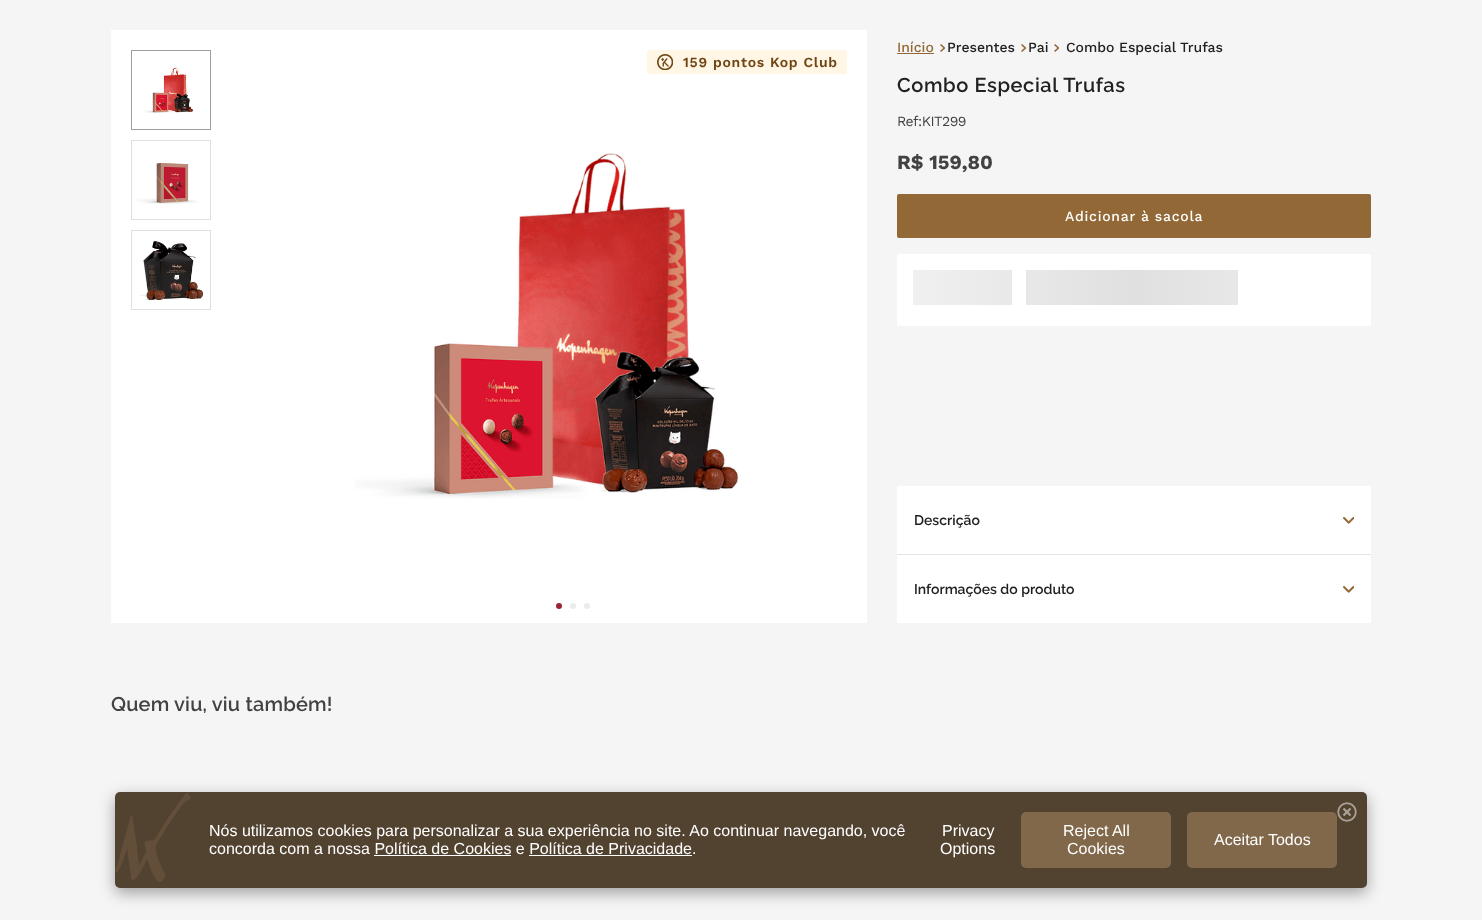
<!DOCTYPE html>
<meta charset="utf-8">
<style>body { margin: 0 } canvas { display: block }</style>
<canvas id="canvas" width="1482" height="920"></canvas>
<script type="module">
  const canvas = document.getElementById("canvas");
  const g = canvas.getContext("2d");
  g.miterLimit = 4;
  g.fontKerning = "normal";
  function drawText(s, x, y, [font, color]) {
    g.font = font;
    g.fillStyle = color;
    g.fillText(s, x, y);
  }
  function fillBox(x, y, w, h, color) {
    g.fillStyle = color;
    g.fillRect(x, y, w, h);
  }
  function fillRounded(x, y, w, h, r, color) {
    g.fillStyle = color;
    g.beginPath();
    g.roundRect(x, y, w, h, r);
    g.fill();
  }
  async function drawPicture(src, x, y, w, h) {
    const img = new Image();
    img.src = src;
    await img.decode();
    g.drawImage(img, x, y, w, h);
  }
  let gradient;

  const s1 = ["600 14px Work Sans", "#6F4613"];
  const s2 = ["500 14px Work Sans", "#926836"];
  const s3 = ["500 14px Work Sans", "#212121"];
  const s4 = ["100 20px Raleway", "#212121"];
  const s5 = ["14px Work Sans", "#424242"];
  const s6 = ["bold 20px Work Sans", "#424242"];
  const s7 = ["500 14px Work Sans", "#FFFFFF"];
  const s8 = ["100 14px Raleway", "#212121"];
  const s9 = ["100 20px Raleway", "#424242"];
  const s10 = ["16px Liberation Sans", "#FFFFFF"];

  fillBox(0, 0, 1482, 920, "#F5F5F5");
  fillBox(111, 30, 756, 593, "#FFFFFF");
  g.strokeStyle = "#9E9E9E";
  g.strokeRect(131.5, 50.5, 79, 79);
  await drawPicture("pic1.png", 143, 67, 50, 46);
  g.strokeStyle = "#E0E0E0";
  g.strokeRect(131.5, 140.5, 79, 79);
  await drawPicture("pic2.png", 136, 163, 62, 41);
  g.strokeRect(131.5, 230.5, 79, 79);
  await drawPicture("pic3.png", 140, 241, 63, 59);
  await drawPicture("pic4.png", 355, 153, 384, 346);
  g.fillStyle = "#9D2235";
  g.beginPath();
  g.arc(559, 606, 3, 0, Math.PI * 2);
  g.fill();
  g.fillStyle = "#ECECEC";
  g.beginPath();
  g.arc(573, 606, 3, 0, Math.PI * 2);
  g.fill();
  g.beginPath();
  g.arc(587, 606, 3, 0, Math.PI * 2);
  g.fill();
  fillRounded(647, 50, 200, 24, 2, "#FFF6E6");
  await drawPicture("pic5.png", 657, 54, 16, 16);
  g.letterSpacing = "0.75px";
  drawText("159 pontos Kop Club", 683, 67, s1);
  g.letterSpacing = "0px";
  drawText("Início", 897, 52, s2);
  fillBox(897, 53, 37, 1, "#926836");
  await drawPicture("pic6.png", 940, 44, 6, 8);
  drawText("Presentes", 947, 52, s3);
  await drawPicture("pic6.png", 1021, 44, 6, 8);
  drawText("Pai", 1028, 52, s3);
  await drawPicture("pic6.png", 1054, 44, 6, 8);
  drawText("Combo Especial Trufas", 1066, 52, s3);
  g.letterSpacing = "0.6px";
  drawText("Combo Especial Trufas", 897, 92, s4);
  g.letterSpacing = "-0.5px";
  drawText("Ref:KIT299", 897, 126, s5);
  g.letterSpacing = "0px";
  drawText("R$ 159,80", 897, 169, s6);
  fillRounded(897, 194, 474, 44, 2, "#926836");
  g.letterSpacing = "0.75px";
  drawText("Adicionar à sacola", 1065, 221, s7);
  fillRounded(897, 254, 474, 72, 2, "#FFFFFF");
  gradient = g.createLinearGradient(913, 270, 1355, 270);
  gradient.addColorStop(0, "#F0F0F0");
  gradient.addColorStop(0.5, "#E0E0E0");
  gradient.addColorStop(1, "#F0F0F0");
  g.fillStyle = gradient;
  g.beginPath();
  g.moveTo(913, 270);
  g.lineTo(913, 305);
  g.lineTo(1012, 305);
  g.lineTo(1012, 270);
  g.closePath();
  g.moveTo(1026, 270);
  g.lineTo(1238, 270);
  g.lineTo(1238, 305);
  g.lineTo(1026, 305);
  g.closePath();
  g.fill("evenodd");
  fillBox(897, 486, 474, 68, "#FFFFFF");
  fillBox(897, 554, 474, 1, "#E4E4E4");
  g.letterSpacing = "0px";
  drawText("Descrição", 914, 525, s8);
  await drawPicture("pic7.png", 1343, 517, 11, 7);
  fillBox(897, 555, 474, 68, "#FFFFFF");
  drawText("Informações do produto", 914, 594, s8);
  await drawPicture("pic7.png", 1343, 586, 11, 7);
  g.letterSpacing = "0.2px";
  drawText("Quem viu, viu também!", 111, 711, s9);
  g.fillStyle = "rgba(0, 0, 0, 0.35)";
  g.filter = "blur(7.5px)";
  g.beginPath();
  g.roundRect(115, 797, 1252, 96, 5);
  g.fill();
  g.filter = "none";
  fillRounded(115, 792, 1252, 96, 5, "#524230");
  await drawPicture("pic8.png", 115, 792, 76, 90);
  await drawPicture("pic9.png", 1337, 802, 20, 20);
  g.letterSpacing = "0px";
  drawText("Nós utilizamos cookies para personalizar a sua experiência no site. Ao continuar navegando, você", 209, 836, s10);
  drawText("concorda com a nossa Política de Cookies e Política de Privacidade.", 209, 854, s10);
  fillBox(374, 855, 137, 1, "#FFFFFF");
  fillBox(529, 855, 163, 1, "#FFFFFF");
  drawText("Privacy", 942, 836, s10);
  drawText("Options", 940, 854, s10);
  fillRounded(1021, 812, 150, 56, 5, "#81684B");
  drawText("Reject All", 1063, 836, s10);
  drawText("Cookies", 1067, 854, s10);
  fillRounded(1187, 812, 150, 56, 5, "#81684B");
  drawText("Aceitar Todos", 1214, 845, s10);
</script>
